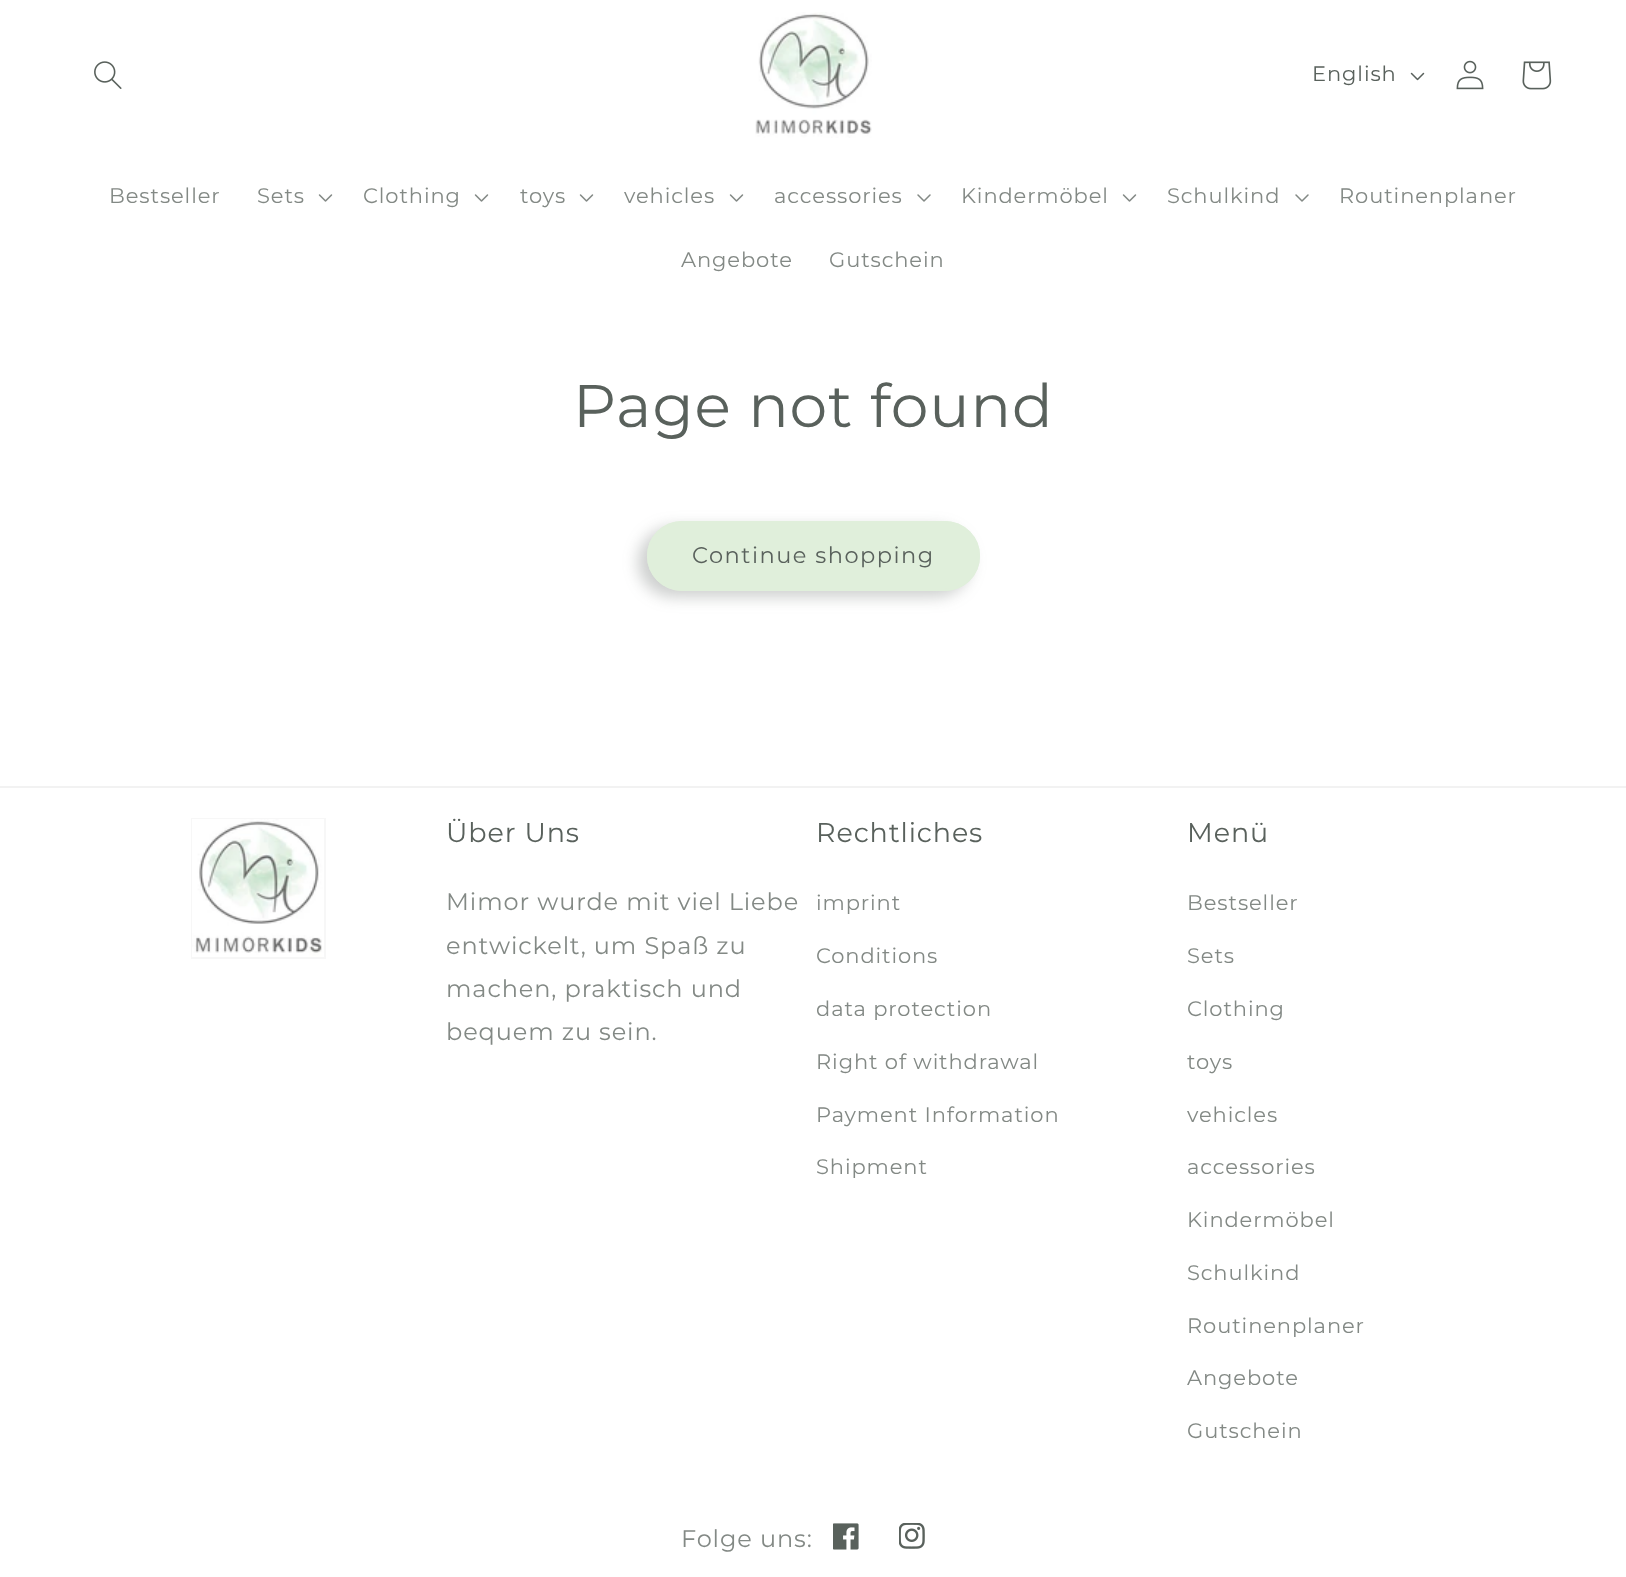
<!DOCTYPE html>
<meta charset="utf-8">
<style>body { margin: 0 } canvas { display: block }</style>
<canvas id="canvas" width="1626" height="1577"></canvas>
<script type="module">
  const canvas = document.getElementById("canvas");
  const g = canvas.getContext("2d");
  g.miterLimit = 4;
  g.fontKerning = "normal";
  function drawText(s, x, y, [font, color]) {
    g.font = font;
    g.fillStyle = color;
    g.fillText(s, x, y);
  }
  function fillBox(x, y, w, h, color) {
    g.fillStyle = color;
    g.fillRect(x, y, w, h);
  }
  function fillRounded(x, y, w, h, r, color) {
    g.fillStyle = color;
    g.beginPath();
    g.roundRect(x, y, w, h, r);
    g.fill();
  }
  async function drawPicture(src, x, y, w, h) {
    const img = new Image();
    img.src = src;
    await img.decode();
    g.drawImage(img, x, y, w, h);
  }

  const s1 = ["21px Montserrat", "#59615C"];
  const s2 = ["21px Montserrat", "#838985"];
  const s3 = ["60px Montserrat", "#59615C"];
  const s4 = ["22.5px Montserrat", "#59615C"];
  const s5 = ["27px Montserrat", "#59615C"];
  const s6 = ["24px Montserrat", "#838985"];

  fillBox(0, 0, 1626, 1577, "#FFFFFF");
  await drawPicture("pic1.png", 94, 61, 28, 28);
  await drawPicture("pic2.png", 755, 12, 117, 126);
  g.letterSpacing = "0.9px";
  drawText("English", 1312, 81, s1);
  await drawPicture("pic3.png", 1410, 72, 15, 9);
  await drawPicture("pic4.png", 1456, 60, 28, 30);
  await drawPicture("pic5.png", 1522, 61, 30, 29);
  drawText("Bestseller", 109, 203, s2);
  drawText("Sets", 257, 203, s2);
  await drawPicture("pic6.png", 318, 194, 15, 8);
  drawText("Clothing", 363, 203, s2);
  await drawPicture("pic6.png", 474, 194, 15, 8);
  drawText("toys", 520, 203, s2);
  await drawPicture("pic6.png", 579, 194, 15, 8);
  drawText("vehicles", 624, 203, s2);
  await drawPicture("pic6.png", 729, 194, 15, 8);
  drawText("accessories", 774, 203, s2);
  await drawPicture("pic7.png", 917, 194, 14, 8);
  drawText("Kindermöbel", 961, 203, s2);
  await drawPicture("pic6.png", 1122, 194, 15, 8);
  drawText("Schulkind", 1167, 203, s2);
  await drawPicture("pic7.png", 1295, 194, 14, 8);
  drawText("Routinenplaner", 1339, 203, s2);
  drawText("Angebote", 681, 267, s2);
  drawText("Gutschein", 829, 267, s2);
  drawText("Page not found", 573, 427, s3);
  g.fillStyle = "rgba(89, 97, 92, 0.3)";
  g.filter = "blur(7.5px)";
  g.beginPath();
  g.roundRect(638, 527, 333, 70, 35);
  g.fill();
  g.filter = "none";
  fillRounded(647, 521, 333, 70, 35, "#E0EFDB");
  g.beginPath();
  g.roundRect(648, 522, 331, 68, 34);
  g.strokeStyle = "#E0EFDB";
  g.lineWidth = 2;
  g.stroke();
  g.letterSpacing = "1.5px";
  drawText("Continue shopping", 692, 563, s4);
  fillBox(0, 786, 1626, 2, "#F2F2F2");
  g.strokeStyle = "#F7F7F7";
  g.strokeRect(192, 819, 133, 139);
  await drawPicture("pic8.png", 192, 819, 132, 138);
  g.letterSpacing = "0.9px";
  drawText("Über Uns", 446, 842, s5);
  drawText("Mimor wurde mit viel Liebe", 446, 910, s6);
  drawText("entwickelt, um Spaß zu", 446, 954, s6);
  drawText("machen, praktisch und", 446, 997, s6);
  drawText("bequem zu sein.", 446, 1040, s6);
  drawText("Rechtliches", 816, 842, s5);
  drawText("imprint", 816, 910, s2);
  drawText("Conditions", 816, 963, s2);
  drawText("data protection", 816, 1016, s2);
  drawText("Right of withdrawal", 816, 1069, s2);
  drawText("Payment Information", 816, 1122, s2);
  drawText("Shipment", 816, 1174, s2);
  drawText("Menü", 1187, 842, s5);
  drawText("Bestseller", 1187, 910, s2);
  drawText("Sets", 1187, 963, s2);
  drawText("Clothing", 1187, 1016, s2);
  drawText("toys", 1187, 1069, s2);
  drawText("vehicles", 1187, 1122, s2);
  drawText("accessories", 1187, 1174, s2);
  drawText("Kindermöbel", 1187, 1227, s2);
  drawText("Schulkind", 1187, 1280, s2);
  drawText("Routinenplaner", 1187, 1333, s2);
  drawText("Angebote", 1187, 1385, s2);
  drawText("Gutschein", 1187, 1438, s2);
  drawText("Folge uns:", 681, 1547, s6);
  await drawPicture("pic9.png", 833, 1523, 26, 27);
  await drawPicture("pic10.png", 899, 1523, 26, 26);
</script>
